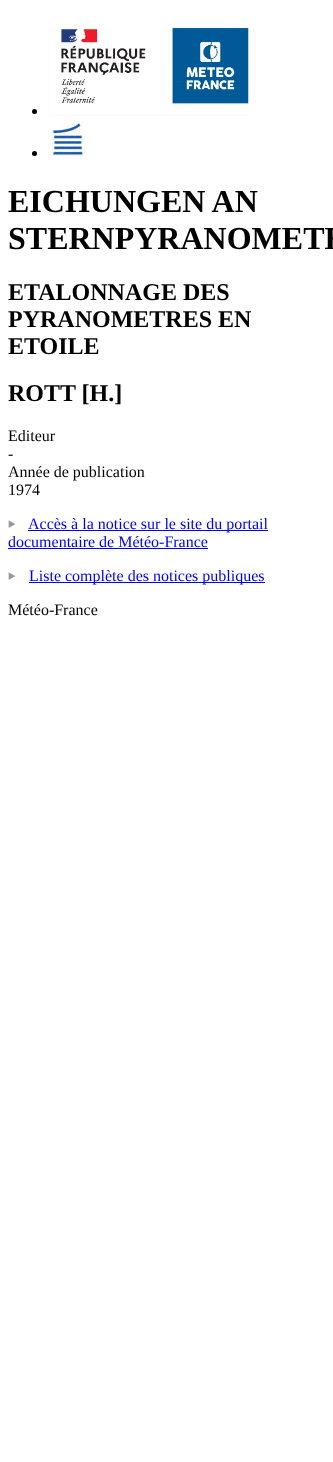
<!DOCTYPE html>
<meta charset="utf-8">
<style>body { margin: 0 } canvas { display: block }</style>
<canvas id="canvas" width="333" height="1462"></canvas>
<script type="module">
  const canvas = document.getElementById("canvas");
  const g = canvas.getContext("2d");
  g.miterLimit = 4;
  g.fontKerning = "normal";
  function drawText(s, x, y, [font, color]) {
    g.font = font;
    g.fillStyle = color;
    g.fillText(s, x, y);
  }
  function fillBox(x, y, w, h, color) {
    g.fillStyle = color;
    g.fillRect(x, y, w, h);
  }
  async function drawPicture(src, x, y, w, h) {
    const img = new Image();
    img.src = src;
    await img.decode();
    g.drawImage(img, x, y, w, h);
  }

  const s1 = ["bold 32px Liberation Serif", "#000000"];
  const s2 = ["bold 24px Liberation Serif", "#000000"];
  const s3 = ["16px Liberation Serif", "#000000"];
  const s4 = ["16px Liberation Serif", "#0000EE"];

  fillBox(0, 0, 333, 1462, "#FFFFFF");
  g.fillStyle = "#000000";
  g.beginPath();
  g.arc(34.5, 111.5, 2.5, 0, Math.PI * 2);
  g.fill();
  await drawPicture("pic1.png", 48, 27, 201, 89);
  g.beginPath();
  g.arc(34.5, 153.5, 2.5, 0, Math.PI * 2);
  g.fill();
  await drawPicture("pic2.png", 48, 120, 38, 38);
  drawText("EICHUNGEN AN", 8, 212, s1);
  drawText("STERNPYRANOMETE", 8, 249, s1);
  drawText("ETALONNAGE DES", 8, 300, s2);
  drawText("PYRANOMETRES EN", 8, 327, s2);
  drawText("ETOILE", 8, 354, s2);
  drawText("ROTT [H.]", 8, 401, s2);
  drawText("Editeur", 8, 441, s3);
  drawText("-", 8, 459, s3);
  drawText("Année de publication", 8, 477, s3);
  drawText("1974", 8, 495, s3);
  await drawPicture("pic3.png", 8, 520, 8, 8);
  fillBox(28, 530, 240, 1, "#0000EE");
  drawText("Accès à la notice sur le site du portail", 28, 529, s4);
  drawText("documentaire de Météo-France", 8, 547, s4);
  fillBox(8, 548, 200, 1, "#0000EE");
  await drawPicture("pic3.png", 8, 572, 8, 8);
  fillBox(29, 582, 236, 1, "#0000EE");
  drawText("Liste complète des notices publiques", 29, 581, s4);
  drawText("Météo-France", 8, 615, s3);
</script>
